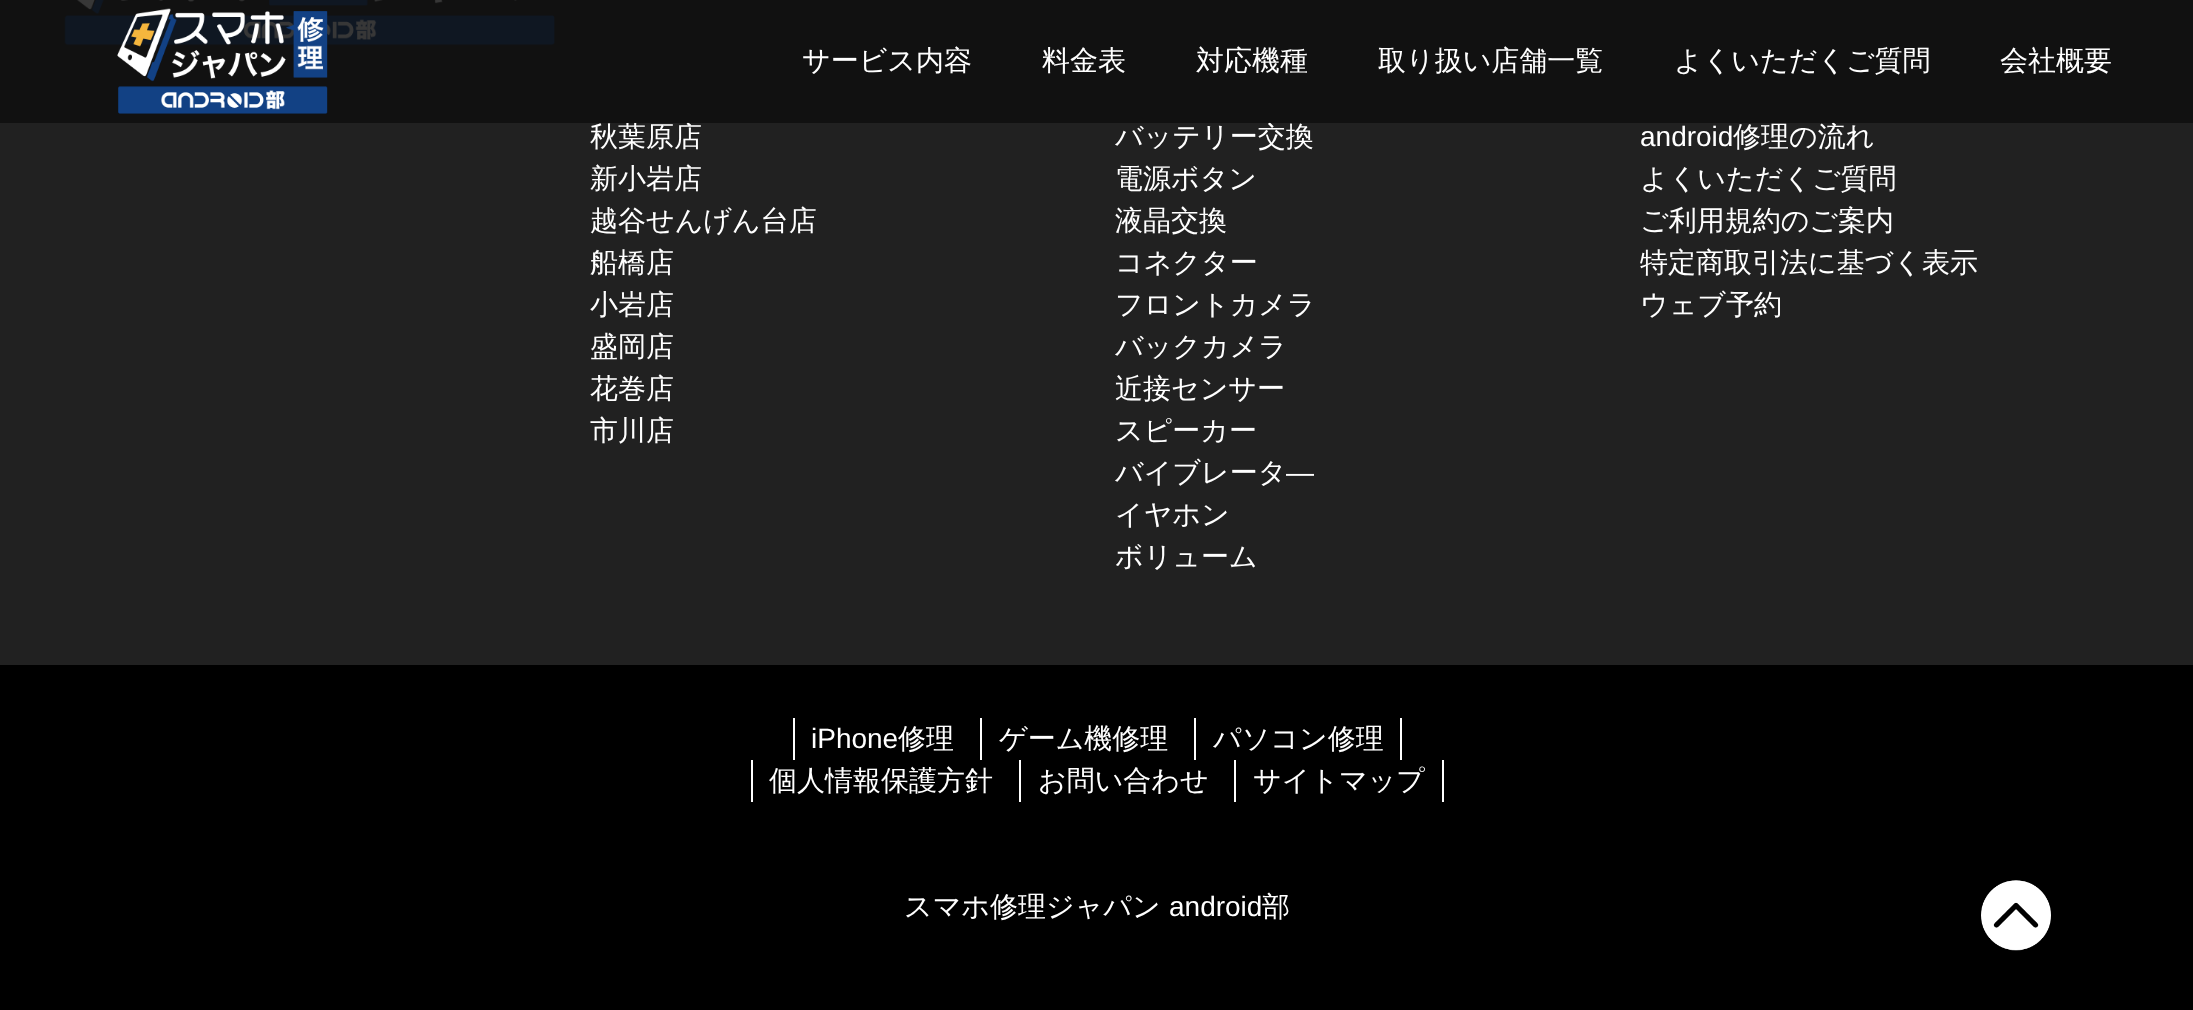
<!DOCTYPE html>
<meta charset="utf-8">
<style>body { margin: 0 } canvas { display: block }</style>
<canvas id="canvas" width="2193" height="1010"></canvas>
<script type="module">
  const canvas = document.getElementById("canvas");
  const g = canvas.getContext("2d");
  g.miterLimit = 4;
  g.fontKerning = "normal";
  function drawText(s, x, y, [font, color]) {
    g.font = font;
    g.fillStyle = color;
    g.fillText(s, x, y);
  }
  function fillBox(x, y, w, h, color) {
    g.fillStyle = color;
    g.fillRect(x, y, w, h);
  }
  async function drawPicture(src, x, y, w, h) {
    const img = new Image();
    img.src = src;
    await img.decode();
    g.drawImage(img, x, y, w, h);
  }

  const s1 = ["500 28px WenQuanYi Zen Hei", "#FFFFFF"];
  const s2 = ["28px Liberation Sans", "#FFFFFF"];

  fillBox(0, 0, 2193, 1010, "#212121");
  await drawPicture("pic2.png", 64, 0, 491, 46);
  drawText("秋葉原店", 590, 146, s1);
  drawText("バッテリー交換", 1115, 146, s1);
  drawText("修理の流れ", 1733, 146, s1);
  fillBox(0, 0, 2193, 123, "rgba(15, 15, 15, 0.83)");
  await drawPicture("pic1.png", 117, 8, 211, 106);
  drawText("サービス内容", 802, 70, s1);
  drawText("料金表", 1042, 70, s1);
  drawText("対応機種", 1196, 70, s1);
  drawText("取り扱い店舗一覧", 1378, 70, s1);
  drawText("よくいただくご質問", 1674, 70, s1);
  drawText("会社概要", 2000, 70, s1);
  drawText("新小岩店", 590, 188, s1);
  drawText("越谷せんげん台店", 590, 230, s1);
  drawText("船橋店", 590, 272, s1);
  drawText("小岩店", 590, 314, s1);
  drawText("盛岡店", 590, 356, s1);
  drawText("花巻店", 590, 398, s1);
  drawText("市川店", 590, 440, s1);
  drawText("電源ボタン", 1115, 188, s1);
  drawText("液晶交換", 1115, 230, s1);
  drawText("コネクター", 1115, 272, s1);
  drawText("フロントカメラ", 1115, 314, s1);
  drawText("バックカメラ", 1115, 356, s1);
  drawText("近接センサー", 1115, 398, s1);
  drawText("スピーカー", 1115, 440, s1);
  drawText("バイブレータ", 1115, 482, s1);
  drawText("―", 1286, 482, s2);
  drawText("イヤホン", 1115, 524, s1);
  drawText("ボリューム", 1115, 566, s1);
  drawText("android", 1640, 146, s2);
  drawText("よくいただくご質問", 1640, 188, s1);
  drawText("ご利用規約のご案内", 1640, 230, s1);
  drawText("特定商取引法に基づく表示", 1640, 272, s1);
  drawText("ウェブ予約", 1640, 314, s1);
  fillBox(0, 665, 2193, 345, "#000000");
  fillBox(793, 718, 2, 42, "#FFFFFF");
  drawText("iPhone", 811, 748, s2);
  drawText("修理", 898, 748, s1);
  fillBox(980, 718, 2, 42, "#FFFFFF");
  drawText("ゲーム機修理", 999, 748, s1);
  fillBox(1400, 718, 2, 42, "#FFFFFF");
  fillBox(1194, 718, 2, 42, "#FFFFFF");
  drawText("パソコン修理", 1213, 748, s1);
  fillBox(751, 760, 2, 42, "#FFFFFF");
  drawText("個人情報保護方針", 769, 790, s1);
  fillBox(1019, 760, 2, 42, "#FFFFFF");
  drawText("お問い合わせ", 1038, 790, s1);
  fillBox(1442, 760, 2, 42, "#FFFFFF");
  fillBox(1234, 760, 2, 42, "#FFFFFF");
  drawText("サイトマップ", 1253, 790, s1);
  drawText("スマホ修理ジャパン", 904, 916, s1);
  drawText("android", 1169, 916, s2);
  drawText("部", 1262, 916, s1);
  await drawPicture("pic3.png", 1981, 880, 70, 71);
</script>
